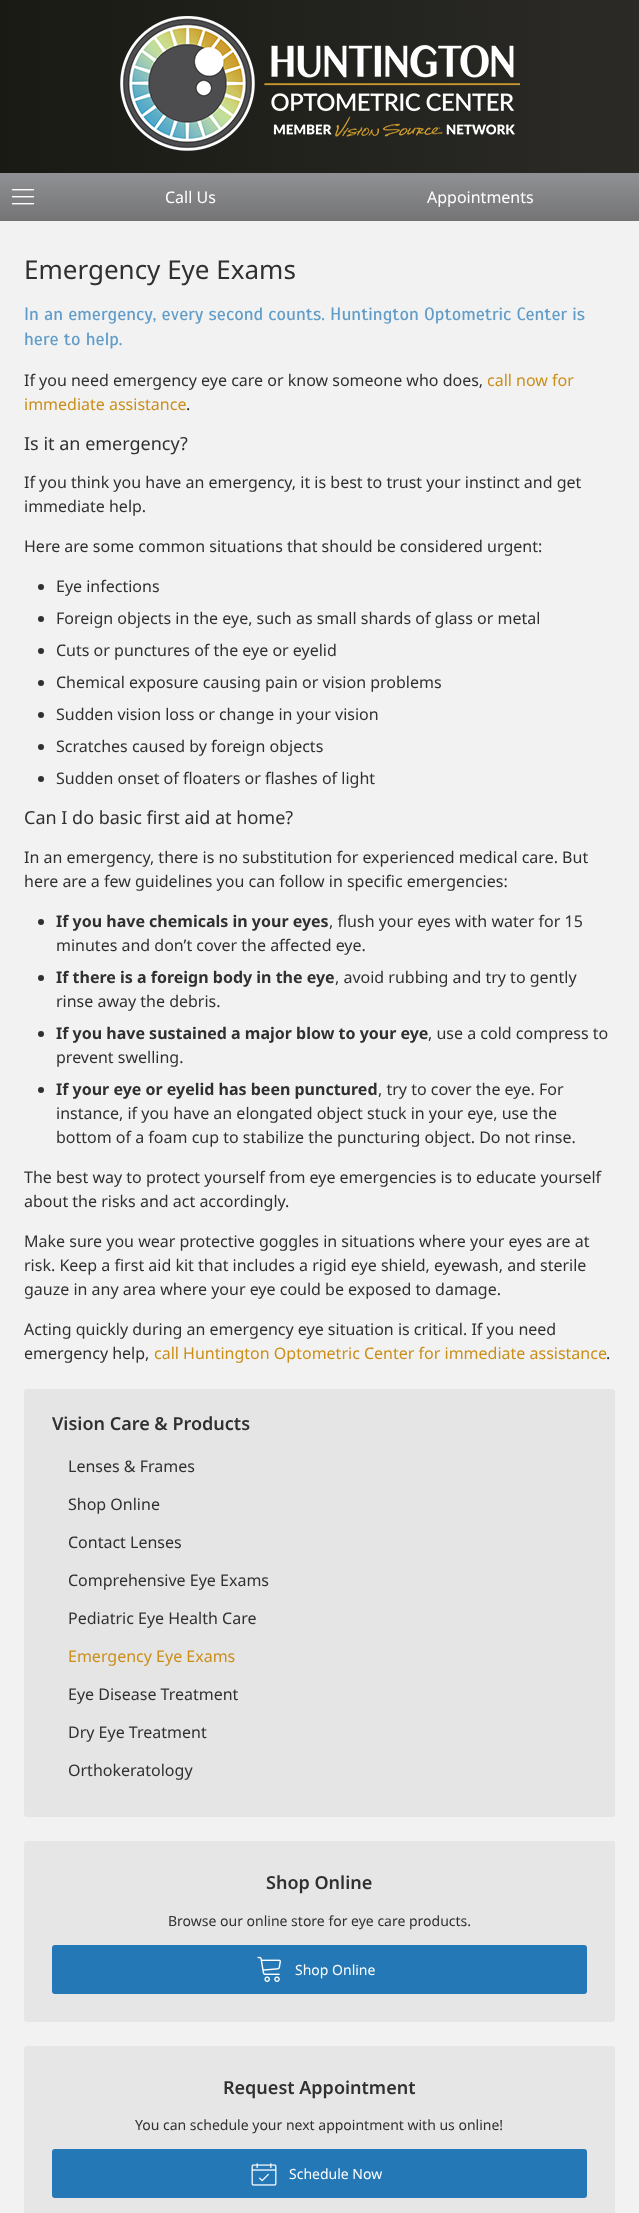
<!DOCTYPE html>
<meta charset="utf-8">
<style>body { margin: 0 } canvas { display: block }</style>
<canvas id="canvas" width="639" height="2213"></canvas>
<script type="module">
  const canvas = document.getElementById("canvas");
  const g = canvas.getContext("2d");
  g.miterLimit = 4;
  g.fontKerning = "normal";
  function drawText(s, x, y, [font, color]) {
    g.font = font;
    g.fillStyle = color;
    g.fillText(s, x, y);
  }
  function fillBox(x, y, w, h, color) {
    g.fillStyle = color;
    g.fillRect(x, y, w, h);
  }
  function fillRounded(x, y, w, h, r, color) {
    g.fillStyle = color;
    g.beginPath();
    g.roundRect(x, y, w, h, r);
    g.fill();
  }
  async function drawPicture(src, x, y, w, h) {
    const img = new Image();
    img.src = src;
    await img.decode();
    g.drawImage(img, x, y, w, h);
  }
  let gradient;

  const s1 = ["16px Noto Sans", "#FFFFFF"];
  const s2 = ["26px Noto Sans", "#303030"];
  const s3 = ["18px Scada", "#619DC8"];
  const s4 = ["16px Noto Sans", "#303030"];
  const s5 = ["16px Noto Sans", "#CA8E19"];
  const s6 = ["18px Noto Sans", "#303030"];
  const s7 = ["bold 16px Noto Sans", "#303030"];
  const s8 = ["600 18px Noto Sans", "#303030"];
  const s9 = ["14px Noto Sans", "#303030"];
  const s10 = ["14px Noto Sans", "#FFFFFF"];

  fillBox(0, 0, 639, 2213, "#F2F2F2");
  gradient = g.createLinearGradient(0, 111, 639, 110);
  gradient.addColorStop(0, "#191A14");
  gradient.addColorStop(1, "#2B2A27");
  g.fillStyle = gradient;
  g.fillRect(0, 0, 639, 173);
  await drawPicture("pic1.png", 120, 16, 400, 135);
  gradient = g.createLinearGradient(320, 173, 320, 221);
  gradient.addColorStop(0, "#909194");
  gradient.addColorStop(1, "#747475");
  g.fillStyle = gradient;
  g.fillRect(0, 173, 639, 48);
  await drawPicture("pic2.png", 11, 189, 24, 16);
  drawText("Call Us", 165, 203, s1);
  drawText("Appointments", 427, 203, s1);
  drawText("Emergency Eye Exams", 24, 279, s2);
  drawText("In an emergency, every second counts. Huntington Optometric Center is", 24, 320, s3);
  drawText("here to help.", 24, 345, s3);
  drawText("If you need emergency eye care or know someone who does,", 24, 386, s4);
  drawText("call now for", 487, 386, s5);
  drawText("immediate assistance", 24, 410, s5);
  drawText(".", 186, 410, s4);
  drawText("Is it an emergency?", 24, 450, s6);
  drawText("If you think you have an emergency, it is best to trust your instinct and get", 24, 488, s4);
  drawText("immediate help.", 24, 512, s4);
  drawText("Here are some common situations that should be considered urgent:", 24, 552, s4);
  g.beginPath();
  g.arc(41, 587, 3, 0, Math.PI * 2);
  g.fill();
  drawText("Eye infections", 56, 592, s4);
  g.beginPath();
  g.arc(41, 619, 3, 0, Math.PI * 2);
  g.fill();
  drawText("Foreign objects in the eye, such as small shards of glass or metal", 56, 624, s4);
  g.beginPath();
  g.arc(41, 651, 3, 0, Math.PI * 2);
  g.fill();
  drawText("Cuts or punctures of the eye or eyelid", 56, 656, s4);
  g.beginPath();
  g.arc(41, 683, 3, 0, Math.PI * 2);
  g.fill();
  drawText("Chemical exposure causing pain or vision problems", 56, 688, s4);
  g.beginPath();
  g.arc(41, 715, 3, 0, Math.PI * 2);
  g.fill();
  drawText("Sudden vision loss or change in your vision", 56, 720, s4);
  g.beginPath();
  g.arc(41, 747, 3, 0, Math.PI * 2);
  g.fill();
  drawText("Scratches caused by foreign objects", 56, 752, s4);
  g.beginPath();
  g.arc(41, 779, 3, 0, Math.PI * 2);
  g.fill();
  drawText("Sudden onset of floaters or flashes of light", 56, 784, s4);
  drawText("Can I do basic first aid at home?", 24, 824, s6);
  drawText("In an emergency, there is no substitution for experienced medical care. But", 24, 863, s4);
  drawText("here are a few guidelines you can follow in specific emergencies:", 24, 887, s4);
  g.beginPath();
  g.arc(41, 922, 3, 0, Math.PI * 2);
  g.fill();
  drawText("If you have chemicals in your eyes", 56, 927, s7);
  drawText(", flush your eyes with water for 15", 329, 927, s4);
  drawText("minutes and don’t cover the affected eye.", 56, 951, s4);
  g.beginPath();
  g.arc(41, 978, 3, 0, Math.PI * 2);
  g.fill();
  drawText("If there is a foreign body in the eye", 56, 983, s7);
  drawText(", avoid rubbing and try to gently", 335, 983, s4);
  drawText("rinse away the debris.", 56, 1007, s4);
  g.beginPath();
  g.arc(41, 1034, 3, 0, Math.PI * 2);
  g.fill();
  drawText("If you have sustained a major blow to your eye", 56, 1039, s7);
  drawText(", use a cold compress to", 428, 1039, s4);
  drawText("prevent swelling.", 56, 1063, s4);
  g.beginPath();
  g.arc(41, 1090, 3, 0, Math.PI * 2);
  g.fill();
  drawText("If your eye or eyelid has been punctured", 56, 1095, s7);
  drawText(", try to cover the eye. For", 378, 1095, s4);
  drawText("instance, if you have an elongated object stuck in your eye, use the", 56, 1119, s4);
  drawText("bottom of a foam cup to stabilize the puncturing object. Do not rinse.", 56, 1143, s4);
  drawText("The best way to protect yourself from eye emergencies is to educate yourself", 24, 1183, s4);
  drawText("about the risks and act accordingly.", 24, 1207, s4);
  drawText("Make sure you wear protective goggles in situations where your eyes are at", 24, 1247, s4);
  drawText("risk. Keep a first aid kit that includes a rigid eye shield, eyewash, and sterile", 24, 1271, s4);
  drawText("gauze in any area where your eye could be exposed to damage.", 24, 1295, s4);
  drawText("Acting quickly during an emergency eye situation is critical. If you need", 24, 1335, s4);
  drawText("emergency help,", 24, 1359, s4);
  drawText("call Huntington Optometric Center for immediate assistance", 154, 1359, s5);
  drawText(".", 606, 1359, s4);
  fillRounded(24, 1389, 591, 428, 3, "#E5E5E5");
  drawText("Vision Care & Products", 52, 1430, s8);
  drawText("Lenses & Frames", 68, 1472, s4);
  drawText("Shop Online", 68, 1510, s4);
  drawText("Contact Lenses", 68, 1548, s4);
  drawText("Comprehensive Eye Exams", 68, 1586, s4);
  drawText("Pediatric Eye Health Care", 68, 1624, s4);
  drawText("Emergency Eye Exams", 68, 1662, s5);
  drawText("Eye Disease Treatment", 68, 1700, s4);
  drawText("Dry Eye Treatment", 68, 1738, s4);
  drawText("Orthokeratology", 68, 1776, s4);
  fillRounded(24, 1841, 591, 181, 3, "#E6E6E6");
  drawText("Shop Online", 266, 1889, s8);
  drawText("Browse our online store for eye care products.", 168, 1926, s9);
  fillRounded(52, 1945, 535, 49, 3, "#2478B6");
  await drawPicture("pic3.png", 257, 1956, 24, 26);
  drawText("Shop Online", 295, 1975, s10);
  fillRounded(24, 2046, 591, 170, 3, "#E6E6E6");
  drawText("Request Appointment", 223, 2094, s8);
  drawText("You can schedule your next appointment with us online!", 135, 2130, s9);
  fillRounded(52, 2149, 535, 49, 3, "#2478B6");
  await drawPicture("pic4.png", 251, 2163, 26, 23);
  drawText("Schedule Now", 289, 2179, s10);
</script>
